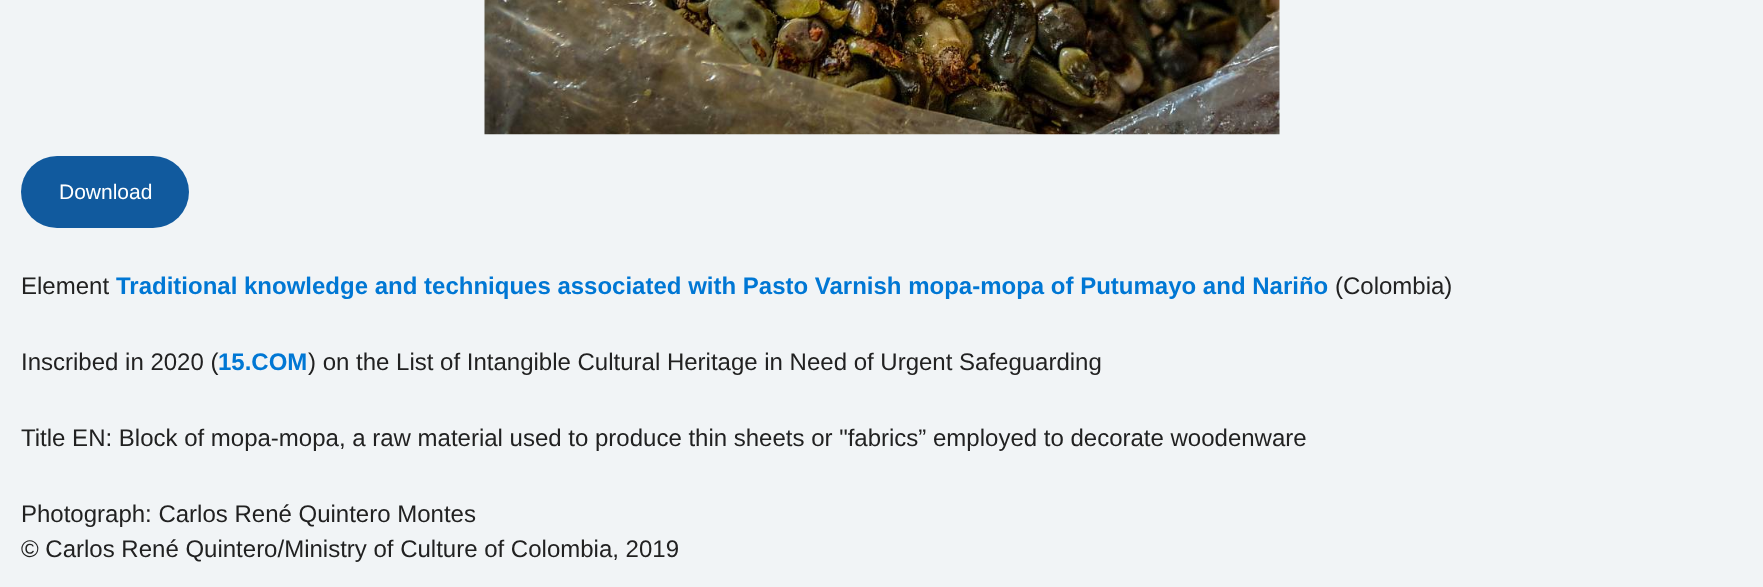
<!DOCTYPE html>
<meta charset="utf-8">
<style>body { margin: 0 } canvas { display: block }</style>
<canvas id="canvas" width="1763" height="587"></canvas>
<script type="module">
  const canvas = document.getElementById("canvas");
  const g = canvas.getContext("2d");
  g.miterLimit = 4;
  g.fontKerning = "normal";
  function drawText(s, x, y, [font, color]) {
    g.font = font;
    g.fillStyle = color;
    g.fillText(s, x, y);
  }
  function fillBox(x, y, w, h, color) {
    g.fillStyle = color;
    g.fillRect(x, y, w, h);
  }
  function fillRounded(x, y, w, h, r, color) {
    g.fillStyle = color;
    g.beginPath();
    g.roundRect(x, y, w, h, r);
    g.fill();
  }
  async function drawPicture(src, x, y, w, h) {
    const img = new Image();
    img.src = src;
    await img.decode();
    g.drawImage(img, x, y, w, h);
  }

  const s1 = ["21px Liberation Sans", "#FFFFFF"];
  const s2 = ["24px Liberation Sans", "#212121"];
  const s3 = ["bold 24px Liberation Sans", "#0077D4"];

  fillBox(0, 0, 1763, 587, "#F1F4F6");
  await drawPicture("pic1.png", 484, 0, 796, 135);
  fillRounded(21, 156, 168, 72, 36, "#115A9E");
  drawText("Download", 59, 199, s1);
  drawText("Element", 21, 294, s2);
  drawText("Traditional knowledge and techniques associated with Pasto Varnish mopa-mopa of Putumayo and Nariño", 116, 294, s3);
  drawText("(Colombia)", 1335, 294, s2);
  drawText("Inscribed in 2020 (", 21, 370, s2);
  drawText("15.COM", 218, 370, s3);
  drawText(") on the List of Intangible Cultural Heritage in Need of Urgent Safeguarding", 308, 370, s2);
  drawText("Title EN: Block of mopa-mopa, a raw material used to produce thin sheets or \"fabrics” employed to decorate woodenware", 21, 446, s2);
  drawText("Photograph: Carlos René Quintero Montes", 21, 522, s2);
  drawText("© Carlos René Quintero/Ministry of Culture of Colombia, 2019", 21, 557, s2);
</script>
